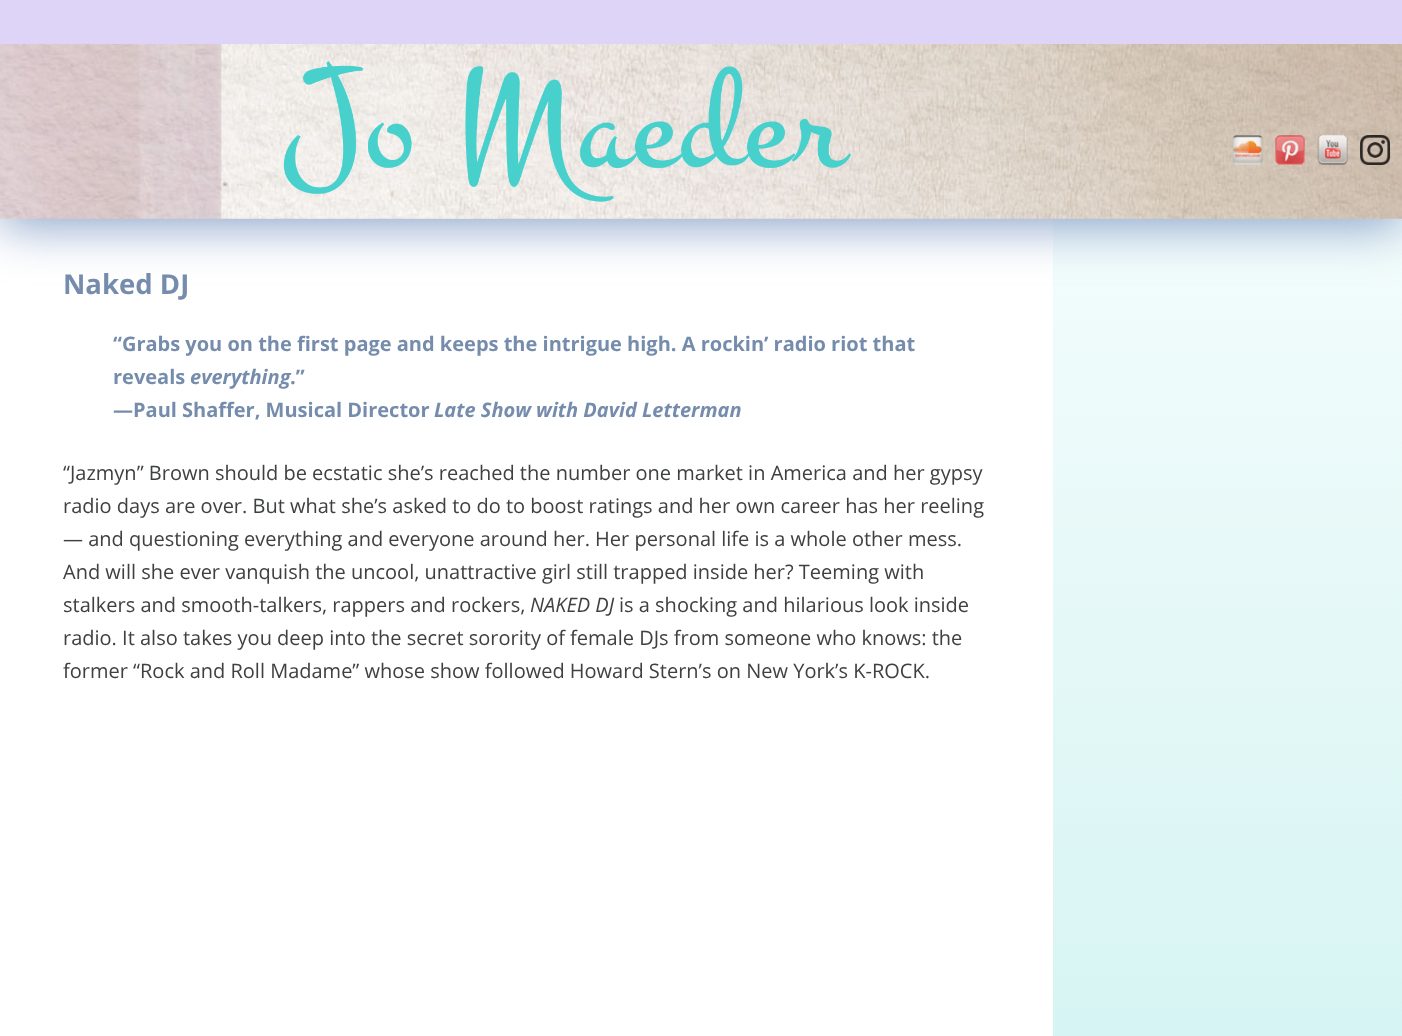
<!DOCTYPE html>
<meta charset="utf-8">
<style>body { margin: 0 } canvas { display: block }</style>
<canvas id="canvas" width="1402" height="1036"></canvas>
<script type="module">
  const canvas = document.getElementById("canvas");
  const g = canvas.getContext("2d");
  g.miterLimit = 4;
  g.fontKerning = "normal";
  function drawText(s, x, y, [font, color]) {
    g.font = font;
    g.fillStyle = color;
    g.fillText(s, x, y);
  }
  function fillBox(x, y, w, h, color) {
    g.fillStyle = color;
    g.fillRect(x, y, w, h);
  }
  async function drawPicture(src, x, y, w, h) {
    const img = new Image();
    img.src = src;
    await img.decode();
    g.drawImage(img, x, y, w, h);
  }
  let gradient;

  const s1 = ["bold 27.5px Open Sans", "#768CAD"];
  const s2 = ["bold 20px Open Sans", "#768CAD"];
  const s3 = ["italic bold 20px Open Sans", "#768CAD"];
  const s4 = ["20px Open Sans", "#3F4040"];
  const s5 = ["italic 20px Open Sans", "#3F4040"];

  fillBox(0, 0, 1402, 1036, "#FFFFFF");
  gradient = g.createLinearGradient(701, 219, 701, 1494);
  gradient.addColorStop(0, "#F3FCFC");
  gradient.addColorStop(1, "#C6F0EE");
  g.fillStyle = gradient;
  g.fillRect(1053, 219, 349, 817);
  g.fillStyle = "#859EC6";
  g.filter = "blur(25px)";
  g.beginPath();
  g.rect(0, 50, 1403, 175);
  g.fill();
  g.filter = "none";
  await drawPicture("pic1.png", 0, 44, 1402, 175);
  await drawPicture("pic2.png", 283, 61, 568, 141);
  await drawPicture("pic3.png", 1232, 135, 31, 30);
  await drawPicture("pic4.png", 1275, 135, 30, 30);
  await drawPicture("pic5.png", 1317, 135, 31, 30);
  await drawPicture("pic6.png", 1360, 135, 30, 30);
  fillBox(0, 0, 1402, 44, "#DDD4F7");
  drawText("Naked DJ", 63, 294, s1);
  drawText("“Grabs you on the first page and keeps the intrigue high. A rockin’ radio riot that", 113, 351, s2);
  drawText("reveals", 113, 384, s2);
  drawText("everything", 190, 384, s3);
  drawText(".”", 290, 384, s2);
  drawText("—Paul Shaffer, Musical Director", 113, 417, s2);
  drawText("Late Show with David Letterman", 434, 417, s3);
  drawText("“Jazmyn” Brown should be ecstatic she’s reached the number one market in America and her gypsy", 63, 480, s4);
  drawText("radio days are over. But what she’s asked to do to boost ratings and her own career has her reeling", 63, 513, s4);
  drawText("— and questioning everything and everyone around her. Her personal life is a whole other mess.", 63, 546, s4);
  drawText("And will she ever vanquish the uncool, unattractive girl still trapped inside her? Teeming with", 63, 579, s4);
  drawText("stalkers and smooth-talkers, rappers and rockers,", 63, 612, s4);
  drawText("NAKED DJ", 530, 612, s5);
  drawText("is a shocking and hilarious look inside", 619, 612, s4);
  drawText("radio. It also takes you deep into the secret sorority of female DJs from someone who knows: the", 63, 645, s4);
  drawText("former “Rock and Roll Madame” whose show followed Howard Stern’s on New York’s K-ROCK.", 63, 678, s4);
</script>
